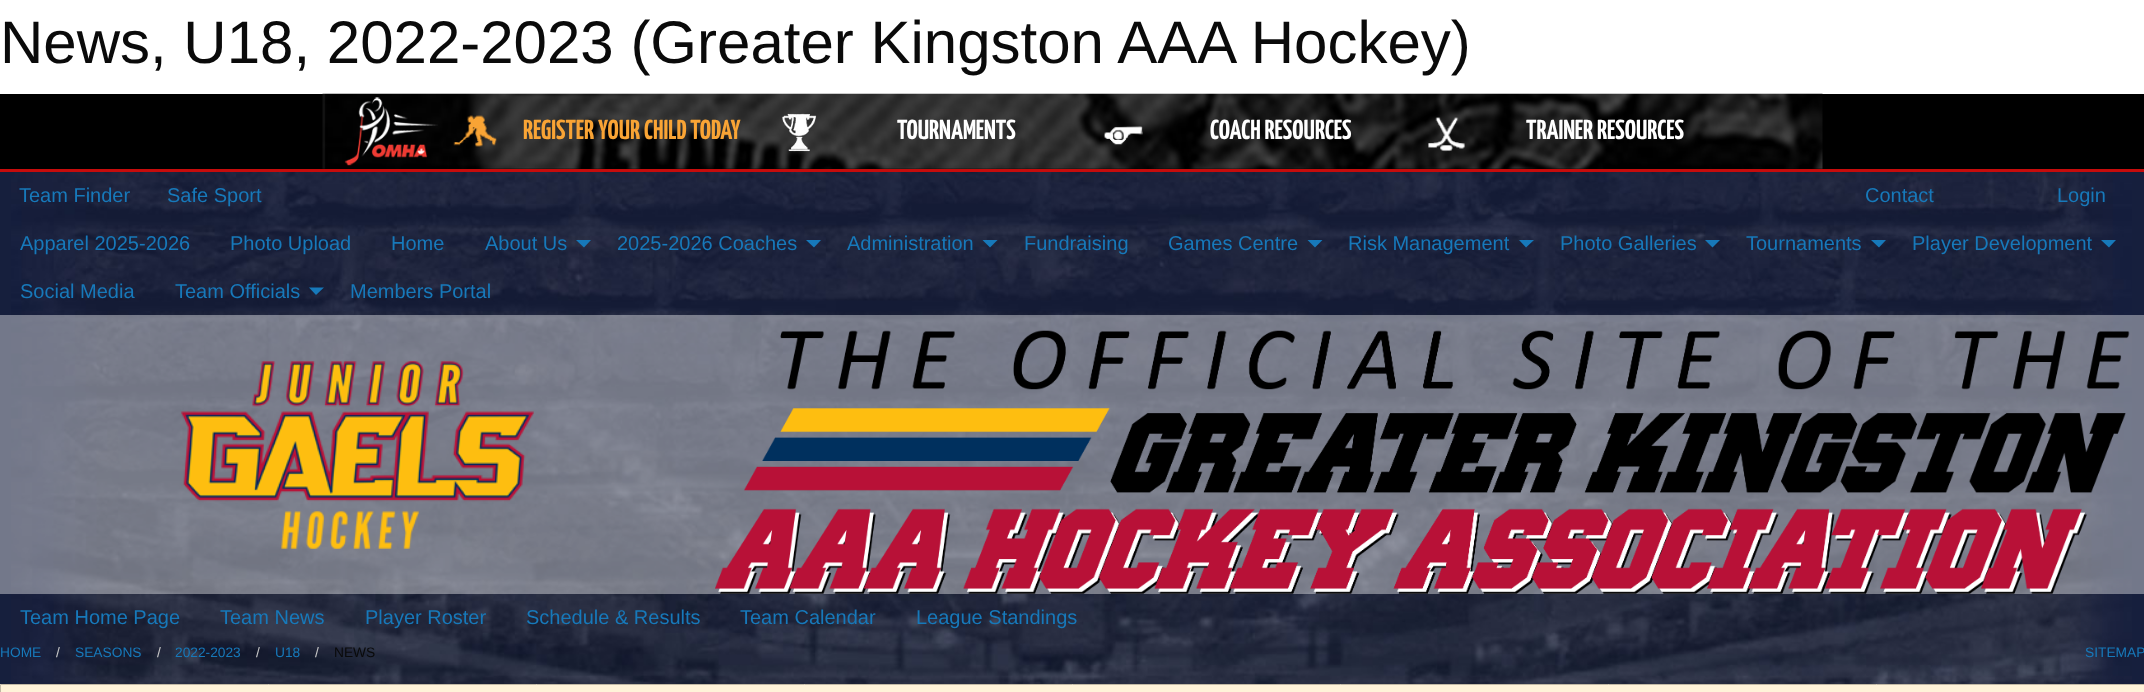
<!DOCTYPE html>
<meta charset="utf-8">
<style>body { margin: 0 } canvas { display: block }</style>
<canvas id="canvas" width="2144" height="692"></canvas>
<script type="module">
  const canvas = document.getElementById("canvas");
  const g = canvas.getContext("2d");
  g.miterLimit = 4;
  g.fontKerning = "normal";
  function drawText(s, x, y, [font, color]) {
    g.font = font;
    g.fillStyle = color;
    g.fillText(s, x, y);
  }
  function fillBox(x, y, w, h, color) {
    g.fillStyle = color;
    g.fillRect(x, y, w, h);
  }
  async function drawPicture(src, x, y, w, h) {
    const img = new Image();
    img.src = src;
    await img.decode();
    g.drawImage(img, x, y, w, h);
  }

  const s1 = ["60px Liberation Sans", "#0A0A0A"];
  const s2 = ["200 27.5px Yanone Kaffeesatz", "#F9A435"];
  const s3 = ["200 27.5px Yanone Kaffeesatz", "#FFFFFF"];
  const s4 = ["20px Liberation Sans", "#1779BA"];
  const s5 = ["13.75px Liberation Sans", "#1779BA"];
  const s6 = ["13.75px Liberation Sans", "#CACACA"];
  const s7 = ["13.75px Liberation Sans", "#0A0A0A"];

  fillBox(0, 0, 2144, 692, "#FFFFFF");
  drawText("News, U18, 2022-2023 (Greater Kingston AAA Hockey)", 0, 63, s1);
  fillBox(0, 94, 2144, 75, "#000000");
  fillBox(0, 169, 2144, 3, "#C60C0C");
  await drawPicture("pic1.png", 322, 93, 1501, 76);
  await drawPicture("pic2.png", 344, 97, 94, 69);
  await drawPicture("pic3.png", 453, 115, 44, 32);
  drawText("REGISTER YOUR CHILD TODAY", 523, 139, s2);
  await drawPicture("pic4.png", 782, 113, 35, 39);
  drawText("TOURNAMENTS", 897, 139, s3);
  await drawPicture("pic5.png", 1103, 126, 40, 19);
  drawText("COACH RESOURCES", 1210, 139, s3);
  await drawPicture("pic6.png", 1428, 117, 37, 35);
  drawText("TRAINER RESOURCES", 1526, 139, s3);
  fillBox(0, 172, 2144, 512, "#161F3D");
  await drawPicture("pic7.png", 11, 172, 2121, 512);
  drawText("Team Finder", 19, 202, s4);
  drawText("Safe Sport", 167, 202, s4);
  drawText("Contact", 1865, 202, s4);
  drawText("Login", 2057, 202, s4);
  drawText("Apparel 2025-2026", 20, 250, s4);
  drawText("Photo Upload", 230, 250, s4);
  drawText("Home", 391, 250, s4);
  drawText("About Us", 485, 250, s4);
  g.beginPath();
  g.moveTo(576, 240);
  g.lineTo(591, 240);
  g.lineTo(584, 247.5);
  g.closePath();
  g.fill();
  drawText("2025-2026 Coaches", 617, 250, s4);
  g.beginPath();
  g.moveTo(806, 240);
  g.lineTo(821, 240);
  g.lineTo(814, 247.5);
  g.closePath();
  g.fill();
  drawText("Administration", 847, 250, s4);
  g.beginPath();
  g.moveTo(982.5, 240);
  g.lineTo(997.5, 240);
  g.lineTo(990, 247.5);
  g.closePath();
  g.fill();
  drawText("Fundraising", 1024, 250, s4);
  drawText("Games Centre", 1168, 250, s4);
  g.beginPath();
  g.moveTo(1307.5, 240);
  g.lineTo(1322.5, 240);
  g.lineTo(1315, 247.5);
  g.closePath();
  g.fill();
  drawText("Risk Management", 1348, 250, s4);
  g.beginPath();
  g.moveTo(1519, 240);
  g.lineTo(1534, 240);
  g.lineTo(1526, 247.5);
  g.closePath();
  g.fill();
  drawText("Photo Galleries", 1560, 250, s4);
  g.beginPath();
  g.moveTo(1705, 240);
  g.lineTo(1720, 240);
  g.lineTo(1712.5, 247.5);
  g.closePath();
  g.fill();
  drawText("Tournaments", 1746, 250, s4);
  g.beginPath();
  g.moveTo(1871, 240);
  g.lineTo(1886, 240);
  g.lineTo(1879, 247.5);
  g.closePath();
  g.fill();
  drawText("Player Development", 1912, 250, s4);
  g.beginPath();
  g.moveTo(2101, 240);
  g.lineTo(2116, 240);
  g.lineTo(2109, 247.5);
  g.closePath();
  g.fill();
  drawText("Social Media", 20, 298, s4);
  drawText("Team Officials", 175, 298, s4);
  g.beginPath();
  g.moveTo(309, 287.5);
  g.lineTo(324, 287.5);
  g.lineTo(316, 295);
  g.closePath();
  g.fill();
  drawText("Members Portal", 350, 298, s4);
  fillBox(0, 315, 2144, 279, "rgba(255, 255, 255, 0.4)");
  await drawPicture("pic8.png", 181, 361, 353, 188);
  await drawPicture("pic9.png", 715, 330, 1415, 264);
  drawText("Team Home Page", 20, 624, s4);
  drawText("Team News", 220, 624, s4);
  drawText("Player Roster", 365, 624, s4);
  drawText("Schedule & Results", 526, 624, s4);
  drawText("Team Calendar", 740, 624, s4);
  drawText("League Standings", 916, 624, s4);
  drawText("HOME", 0, 657, s5);
  drawText("/", 56, 657, s6);
  drawText("SEASONS", 75, 657, s5);
  drawText("/", 157, 657, s6);
  drawText("2022-2023", 175, 657, s5);
  drawText("/", 256, 657, s6);
  drawText("U18", 275, 657, s5);
  drawText("/", 315, 657, s6);
  drawText("NEWS", 334, 657, s7);
  drawText("SITEMAP", 2085, 657, s5);
  g.fillStyle = "#FFF3D9";
  g.beginPath();
  g.rect(0.5, 684.5, 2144, 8);
  g.fill();
  g.strokeStyle = "#C2B9A5";
  g.stroke();
</script>
